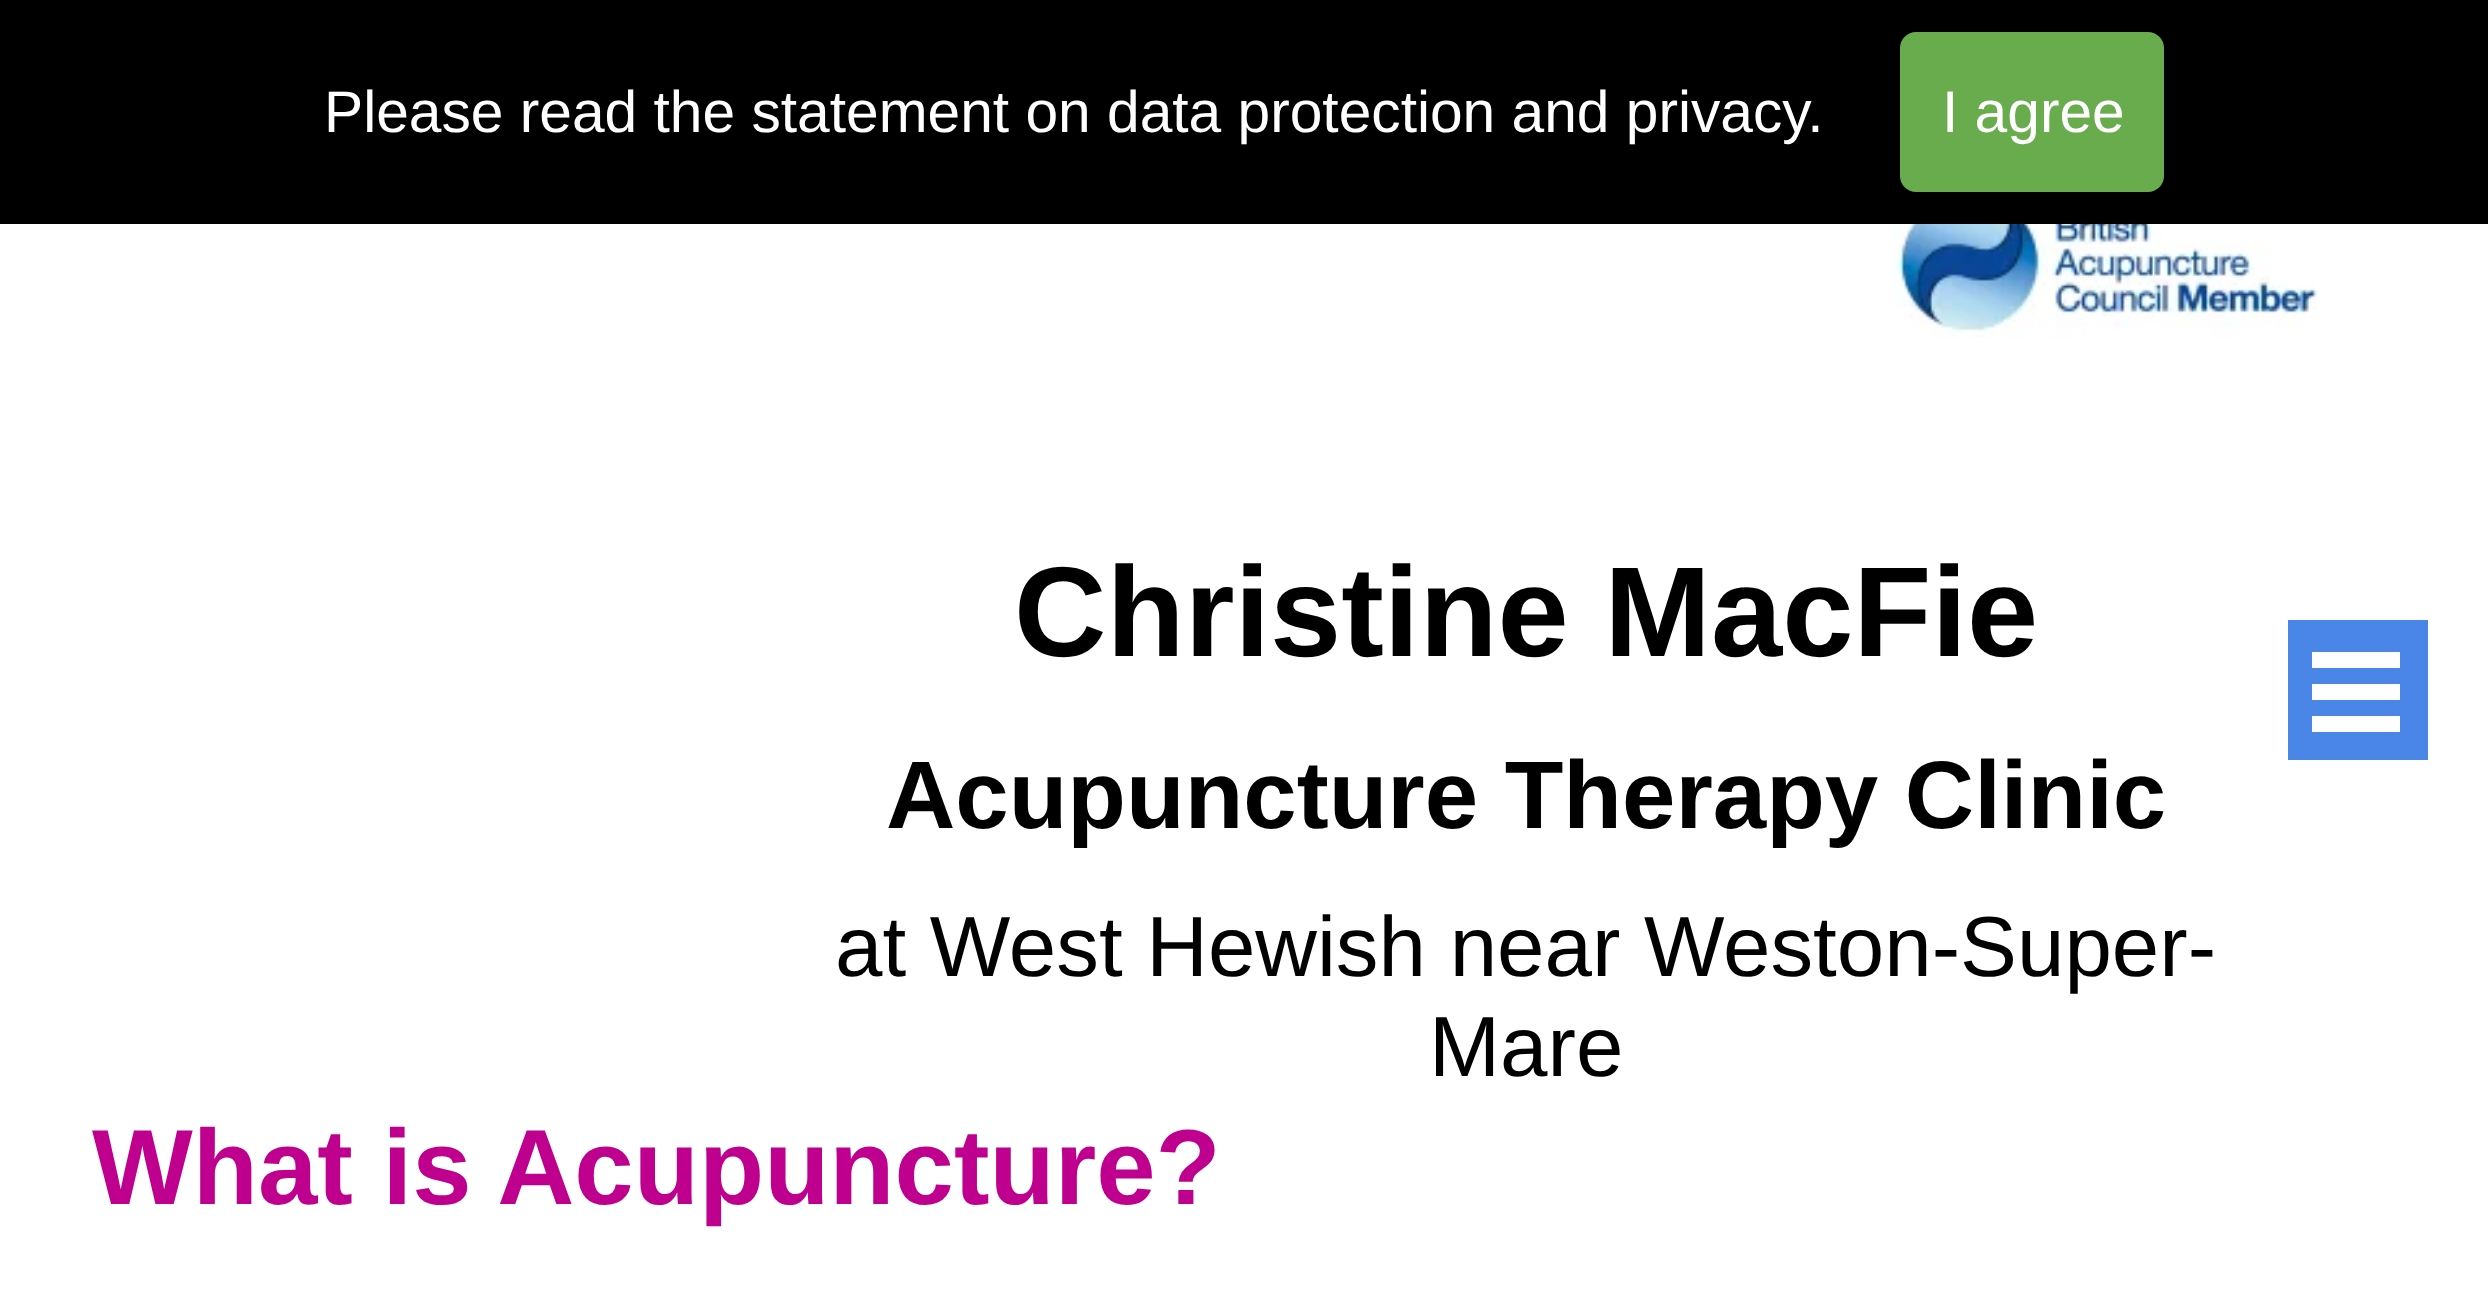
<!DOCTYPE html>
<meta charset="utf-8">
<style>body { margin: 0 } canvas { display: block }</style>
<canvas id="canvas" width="2488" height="1301"></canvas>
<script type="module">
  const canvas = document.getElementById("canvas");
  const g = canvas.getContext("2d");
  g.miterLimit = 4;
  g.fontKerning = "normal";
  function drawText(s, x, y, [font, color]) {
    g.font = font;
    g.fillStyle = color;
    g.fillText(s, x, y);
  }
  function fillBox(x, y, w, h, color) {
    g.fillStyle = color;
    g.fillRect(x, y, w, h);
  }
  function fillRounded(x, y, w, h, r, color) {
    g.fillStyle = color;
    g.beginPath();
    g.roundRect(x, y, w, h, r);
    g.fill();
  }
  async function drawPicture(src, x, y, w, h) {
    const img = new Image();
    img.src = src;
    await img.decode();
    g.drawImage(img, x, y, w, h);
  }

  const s1 = ["58.7px Liberation Sans", "#FFFFFF"];
  const s2 = ["bold 128px Liberation Sans", "#000000"];
  const s3 = ["bold 96px Liberation Sans", "#000000"];
  const s4 = ["85.3px Liberation Sans", "#000000"];
  const s5 = ["bold 106.75px Liberation Sans", "#BF008F"];

  fillBox(0, 0, 2488, 1301, "#FFFFFF");
  fillBox(0, 0, 2488, 224, "#000000");
  drawText("Please read the statement on data protection and privacy.", 324, 132, s1);
  fillRounded(1900, 32, 264, 160, 16, "#69AC4D");
  drawText("I agree", 1942, 132, s1);
  await drawPicture("pic1.png", 1890, 224, 427, 114);
  drawText("Christine MacFie", 1014, 656, s2);
  fillBox(2288, 620, 140, 140, "#4A86E8");
  fillBox(2312, 652, 88, 16, "#FFFFFF");
  fillBox(2312, 684, 88, 16, "#FFFFFF");
  fillBox(2312, 716, 88, 16, "#FFFFFF");
  drawText("Acupuncture Therapy Clinic", 886, 828, s3);
  drawText("at West Hewish near Weston-Super-", 835, 976, s4);
  drawText("Mare", 1429, 1076, s4);
  drawText("What is Acupuncture?", 92, 1204, s5);
</script>
